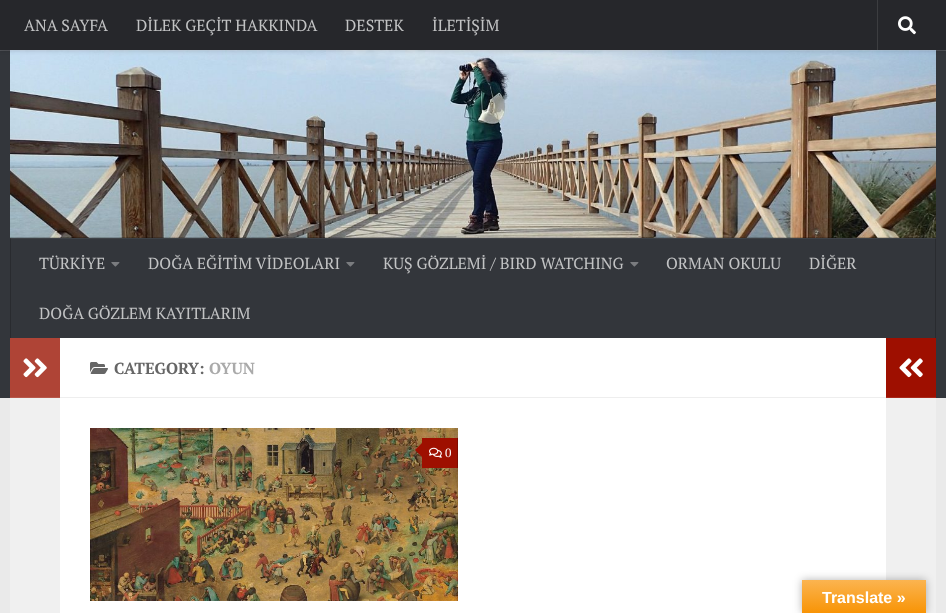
<!DOCTYPE html>
<meta charset="utf-8">
<style>body { margin: 0 } canvas { display: block }</style>
<canvas id="canvas" width="946" height="613"></canvas>
<script type="module">
  const canvas = document.getElementById("canvas");
  const g = canvas.getContext("2d");
  g.miterLimit = 4;
  g.fontKerning = "normal";
  function drawText(s, x, y, [font, color]) {
    g.font = font;
    g.fillStyle = color;
    g.fillText(s, x, y);
  }
  function fillBox(x, y, w, h, color) {
    g.fillStyle = color;
    g.fillRect(x, y, w, h);
  }
  async function drawPicture(src, x, y, w, h) {
    const img = new Image();
    img.src = src;
    await img.decode();
    g.drawImage(img, x, y, w, h);
  }
  let gradient;

  const s1 = ["16px PT Serif", "#C2C3C4"];
  const s2 = ["bold 16px PT Serif", "#666666"];
  const s3 = ["bold 16px PT Serif", "#AAAAAA"];
  const s4 = ["12px PT Serif", "#FFFFFF"];
  const s5 = ["bold 16px Liberation Sans", "#FFFFFF"];

  fillBox(0, 0, 946, 613, "#EAEAEA");
  fillBox(0, 50, 946, 348, "#33363B");
  fillBox(10, 238, 926, 1, "#3D4045");
  await drawPicture("pic2.png", 10, 50, 926, 188);
  fillBox(0, 50, 946, 1, "rgba(255, 255, 255, 0.15)");
  g.fillStyle = "rgba(0, 0, 0, 0.2)";
  g.filter = "blur(2.5px)";
  g.beginPath();
  g.rect(0, 0, 946, 50);
  g.fill();
  g.filter = "none";
  fillBox(0, 0, 946, 50, "#26272B");
  drawText("ANA SAYFA", 24, 31, s1);
  drawText("DİLEK GEÇİT HAKKINDA", 136, 31, s1);
  drawText("DESTEK", 345, 31, s1);
  drawText("İLETİŞİM", 432, 31, s1);
  fillBox(877, 0, 1, 50, "#3C3D40");
  await drawPicture("pic1.png", 898, 16, 18, 19);
  fillBox(10, 237, 926, 1, "rgba(0, 0, 0, 0.2)");
  fillBox(935, 238, 1, 100, "#292B2F");
  fillBox(935, 238, 1, 1, "#343639");
  fillBox(10, 238, 1, 100, "#292B2F");
  fillBox(10, 238, 1, 1, "#343639");
  drawText("TÜRKİYE", 39, 269, s1);
  await drawPicture("pic3.png", 111, 262, 9, 5);
  drawText("DOĞA EĞİTİM VİDEOLARI", 148, 269, s1);
  await drawPicture("pic3.png", 346, 262, 9, 5);
  drawText("KUŞ GÖZLEMİ / BIRD WATCHING", 383, 269, s1);
  await drawPicture("pic3.png", 630, 262, 9, 5);
  drawText("ORMAN OKULU", 666, 269, s1);
  drawText("DİĞER", 809, 269, s1);
  drawText("DOĞA GÖZLEM KAYITLARIM", 39, 319, s1);
  fillBox(60, 338, 826, 275, "#FFFFFF");
  fillBox(10, 398, 50, 215, "#F0F0F0");
  fillBox(10, 338, 50, 59, "#AF4436");
  fillBox(10, 397, 50, 1, "#B7574A");
  await drawPicture("pic4.png", 23, 358, 24, 20);
  fillBox(60, 397, 826, 1, "#EEEEEE");
  await drawPicture("pic5.png", 90, 362, 18, 12);
  drawText("CATEGORY:", 114, 374, s2);
  drawText("OYUN", 209, 374, s3);
  await drawPicture("pic6.png", 90, 428, 368, 173);
  fillBox(422, 438, 35, 30, "#9E0F00");
  fillBox(457, 438, 1, 30, "#7E0C00");
  g.fillStyle = "#9E0F00";
  g.beginPath();
  g.moveTo(424, 441);
  g.lineTo(424, 459);
  g.lineTo(415, 450);
  g.closePath();
  g.fill();
  await drawPicture("pic7.png", 429, 447, 13, 11);
  drawText("0", 445, 457, s4);
  fillBox(886, 338, 50, 59, "#9E0F00");
  fillBox(886, 397, 50, 1, "#A8271A");
  await drawPicture("pic8.png", 899, 358, 24, 20);
  fillBox(886, 398, 50, 215, "#F0F0F0");
  g.fillStyle = "rgba(0, 0, 0, 0.3)";
  g.filter = "blur(4.5px)";
  g.beginPath();
  g.rect(802, 580, 124, 33);
  g.fill();
  g.filter = "none";
  gradient = g.createLinearGradient(864, 580, 864, 613);
  gradient.addColorStop(0, "#FBB450");
  gradient.addColorStop(1, "#F89406");
  g.fillStyle = gradient;
  g.fillRect(802, 580, 124, 33);
  drawText("Translate »", 822, 603, s5);
</script>
